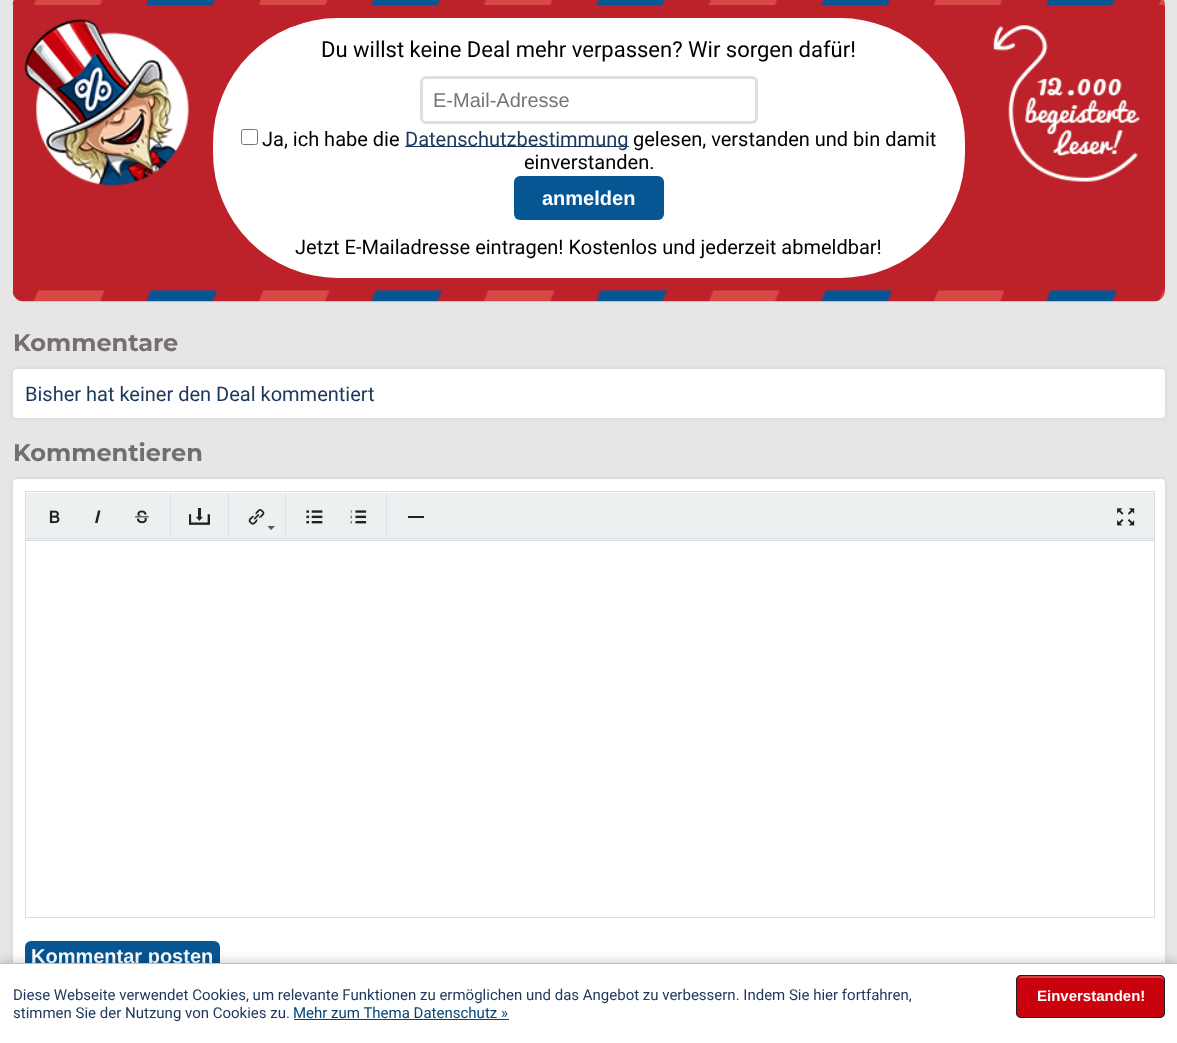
<!DOCTYPE html>
<meta charset="utf-8">
<style>body { margin: 0 } canvas { display: block }</style>
<canvas id="canvas" width="1177" height="1043"></canvas>
<script type="module">
  const canvas = document.getElementById("canvas");
  const g = canvas.getContext("2d");
  g.miterLimit = 4;
  g.fontKerning = "normal";
  function drawText(s, x, y, [font, color]) {
    g.font = font;
    g.fillStyle = color;
    g.fillText(s, x, y);
  }
  function fillBox(x, y, w, h, color) {
    g.fillStyle = color;
    g.fillRect(x, y, w, h);
  }
  function fillRounded(x, y, w, h, r, color) {
    g.fillStyle = color;
    g.beginPath();
    g.roundRect(x, y, w, h, r);
    g.fill();
  }
  async function drawPicture(src, x, y, w, h) {
    const img = new Image();
    img.src = src;
    await img.decode();
    g.drawImage(img, x, y, w, h);
  }

  const s1 = ["22px Roboto", "#000000"];
  const s2 = ["20px Liberation Sans", "#757575"];
  const s3 = ["20px Roboto", "#000000"];
  const s4 = ["20px Roboto", "#1C375D"];
  const s5 = ["bold 20px Liberation Sans", "#FFFFFF"];
  const s6 = ["bold 24px Montserrat", "#756F6F"];
  const s7 = ["bold 24px Montserrat", "#6F6F6F"];
  const s8 = ["15px Roboto", "#1C375D"];
  const s9 = ["15px Roboto", "#044476"];
  const s10 = ["bold 15px Liberation Sans", "#FFFFFF"];

  fillBox(0, 0, 1177, 1043, "#E6E6E6");
  fillRounded(13, -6, 1152, 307, 13, "#BD2129");
  await drawPicture("pic1.png", 12, 0, 1153, 6);
  await drawPicture("pic2.png", 24, 18, 165, 168);
  fillRounded(213, 18, 752, 260, 125, "#FFFFFF");
  drawText("Du willst keine Deal mehr verpassen? Wir sorgen dafür!", 321, 57, s1);
  g.beginPath();
  g.roundRect(421.5, 77.5, 335, 45, 4.5);
  g.strokeStyle = "#DFDFDF";
  g.lineWidth = 3;
  g.stroke();
  drawText("E-Mail-Adresse", 433, 107, s2);
  g.beginPath();
  g.roundRect(241.5, 129.5, 16, 15, 2);
  g.strokeStyle = "#767676";
  g.lineWidth = 1;
  g.stroke();
  drawText("Ja, ich habe die", 262, 146, s3);
  fillBox(405, 146, 224, 1, "#1C375D");
  drawText("Datenschutzbestimmung", 405, 146, s4);
  drawText("gelesen, verstanden und bin damit", 633, 146, s3);
  drawText("einverstanden.", 524, 169, s3);
  fillRounded(514, 176, 150, 44, 6, "#065694");
  drawText("anmelden", 542, 205, s5);
  drawText("Jetzt E-Mailadresse eintragen! Kostenlos und jederzeit abmeldbar!", 295, 254, s3);
  await drawPicture("pic3.png", 993, 25, 148, 157);
  await drawPicture("pic4.png", 12, 290, 1153, 12);
  drawText("Kommentare", 13, 351, s6);
  g.fillStyle = "rgba(0, 0, 0, 0.1)";
  g.filter = "blur(2px)";
  g.beginPath();
  g.roundRect(13, 369, 1152, 49, 4);
  g.fill();
  g.filter = "none";
  fillRounded(13, 369, 1152, 49, 4, "#FFFFFF");
  drawText("Bisher hat keiner den Deal kommentiert", 25, 401, s4);
  drawText("Kommentieren", 13, 461, s7);
  g.fillStyle = "rgba(0, 0, 0, 0.1)";
  g.filter = "blur(2px)";
  g.beginPath();
  g.roundRect(13, 479, 1152, 507, 4);
  g.fill();
  g.filter = "none";
  fillRounded(13, 479, 1152, 507, 4, "#FFFFFF");
  g.strokeStyle = "#DDDDDD";
  g.strokeRect(25.5, 491.5, 1129, 426);
  fillBox(26, 493, 1128, 47, "#ECF0F1");
  fillBox(26, 540, 1128, 1, "#D7E0E2");
  await drawPicture("pic5.png", 49, 510, 11, 14);
  g.fillStyle = "#222222";
  g.beginPath();
  g.moveTo(95, 523);
  g.lineTo(98, 510.5);
  g.lineTo(100.5, 510.5);
  g.lineTo(97.5, 523);
  g.closePath();
  g.fill();
  await drawPicture("pic6.png", 135, 510, 14, 14);
  fillBox(170, 493, 1, 43, "#D7E0E2");
  await drawPicture("pic7.png", 189, 508, 21, 17);
  fillBox(228, 493, 1, 43, "#D7E0E2");
  await drawPicture("pic8.png", 248, 509, 17, 16);
  g.fillStyle = "#555555";
  g.beginPath();
  g.moveTo(267.5, 526);
  g.lineTo(275, 526);
  g.lineTo(271, 530);
  g.closePath();
  g.fill();
  fillBox(285, 493, 1, 43, "#D7E0E2");
  await drawPicture("pic9.png", 306, 510, 17, 14);
  await drawPicture("pic10.png", 350, 510, 17, 14);
  fillBox(386, 493, 1, 43, "#D7E0E2");
  fillBox(408, 516, 16, 2, "#222222");
  await drawPicture("pic11.png", 1117, 508, 18, 18);
  fillBox(26, 538, 1128, 1, "#D7E0E2");
  fillRounded(25, 941, 195, 30, 6, "#065694");
  drawText("Kommentar posten", 31, 963, s5);
  g.fillStyle = "rgba(0, 0, 0, 0.25)";
  g.filter = "blur(6px)";
  g.beginPath();
  g.rect(0, 963, 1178, 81);
  g.fill();
  g.filter = "none";
  fillBox(0, 964, 1177, 79, "#FFFFFF");
  fillBox(0, 963, 1177, 1, "#BFBFBF");
  drawText("Diese Webseite verwendet Cookies, um relevante Funktionen zu ermöglichen und das Angebot zu verbessern. Indem Sie hier fortfahren,", 13, 1000, s8);
  drawText("stimmen Sie der Nutzung von Cookies zu.", 13, 1018, s8);
  drawText("Mehr zum Thema Datenschutz »", 293, 1018, s9);
  fillBox(294, 1019, 215, 1, "#044476");
  fillRounded(1016, 975, 149, 43, 5, "#CA020D");
  g.fillStyle = "#D7414A";
  g.beginPath();
  g.moveTo(1021, 978);
  g.lineTo(1160, 978);
  g.bezierCurveTo(1162, 978, 1164, 979, 1164, 981);
  g.lineTo(1164, 980);
  g.bezierCurveTo(1164, 978, 1162, 976, 1160, 976);
  g.lineTo(1022, 976);
  g.bezierCurveTo(1020, 976, 1018, 978, 1018, 980);
  g.lineTo(1018, 981);
  g.bezierCurveTo(1018, 979, 1019, 978, 1021, 978);
  g.closePath();
  g.fill();
  g.beginPath();
  g.roundRect(1016.5, 975.5, 148, 42, 4.5);
  g.strokeStyle = "#1F1F1F";
  g.stroke();
  drawText("Einverstanden!", 1037, 1001, s10);
</script>
